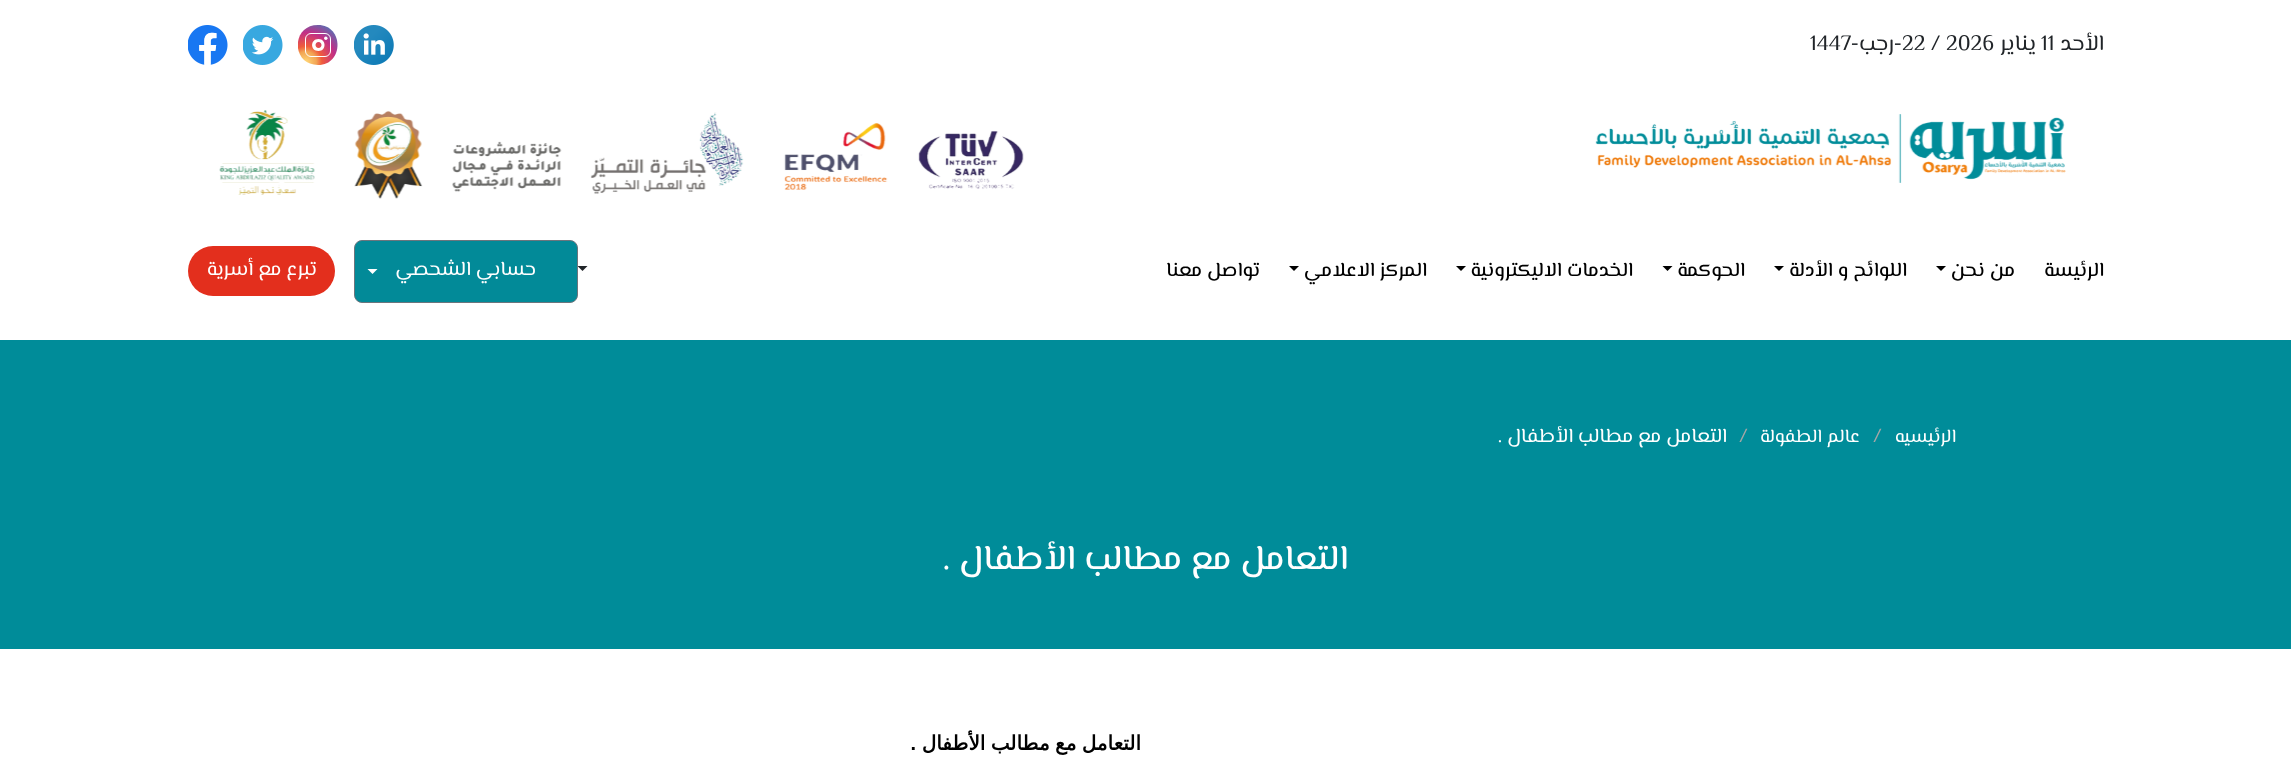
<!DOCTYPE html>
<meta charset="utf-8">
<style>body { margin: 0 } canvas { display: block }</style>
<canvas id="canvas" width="2291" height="783"></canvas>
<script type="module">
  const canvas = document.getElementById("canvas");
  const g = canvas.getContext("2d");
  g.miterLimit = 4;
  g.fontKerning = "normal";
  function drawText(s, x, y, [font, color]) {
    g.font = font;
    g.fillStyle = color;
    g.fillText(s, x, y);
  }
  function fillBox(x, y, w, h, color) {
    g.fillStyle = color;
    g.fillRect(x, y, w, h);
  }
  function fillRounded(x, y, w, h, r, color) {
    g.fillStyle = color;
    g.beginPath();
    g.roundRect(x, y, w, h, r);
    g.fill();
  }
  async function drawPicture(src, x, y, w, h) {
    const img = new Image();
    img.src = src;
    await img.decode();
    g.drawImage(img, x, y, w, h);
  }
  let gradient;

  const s1 = ["22px El Messiri", "#212529"];
  const s2 = ["500 20px El Messiri", "#000000"];
  const s3 = ["20px El Messiri", "#FFFFFF"];
  const s4 = ["18.75px El Messiri", "#FFFFFF"];
  const s5 = ["20px El Messiri", "#A7A7A7"];
  const s6 = ["500 35px El Messiri", "#FFFFFF"];
  const s7 = ["bold 20px DejaVu Sans", "#000000"];
  const s8 = ["bold 20px Liberation Sans", "#000000"];

  fillBox(0, 0, 2291, 783, "#FFFFFF");
  g.direction = "rtl";
  drawText("الأحد", 2104, 50, s1);
  g.direction = "ltr";
  drawText("11", 2041, 50, s1);
  g.direction = "rtl";
  drawText("يناير", 2036, 50, s1);
  g.direction = "ltr";
  drawText("22 / 2026", 1902, 50, s1);
  g.direction = "rtl";
  drawText("-رجب-", 1902, 50, s1);
  g.direction = "ltr";
  drawText("1447", 1810, 50, s1);
  await drawPicture("pic1.png", 354, 25, 40, 40);
  g.save();
  g.beginPath();
  g.rect(298, 25, 40, 40);
  g.clip();
  gradient = g.createRadialGradient(306, 62, 0, 306, 62, 42);
  gradient.addColorStop(0, "#FFD676");
  gradient.addColorStop(0.25, "#F2A454");
  gradient.addColorStop(0.38, "#F05C3C");
  gradient.addColorStop(0.7, "#C22F86");
  gradient.addColorStop(0.96, "#6666AD");
  gradient.addColorStop(0.99, "#5C6CB2");
  g.fillStyle = gradient;
  g.beginPath();
  g.moveTo(318, 25);
  g.bezierCurveTo(291, 25, 291, 65, 318, 65);
  g.bezierCurveTo(344, 65, 344, 25, 318, 25);
  g.closePath();
  g.fill();
  g.restore();
  g.fillStyle = "#FFFFFF";
  g.beginPath();
  g.arc(325.8, 38.3, 1.7, 0, Math.PI * 2);
  g.fill();
  g.beginPath();
  g.moveTo(318.5, 39);
  g.bezierCurveTo(310, 39, 310, 51, 318.5, 51);
  g.bezierCurveTo(326.5, 51, 326.5, 39, 318.5, 39);
  g.closePath();
  g.moveTo(318.5, 48);
  g.bezierCurveTo(314.5, 48, 314.5, 42, 318.5, 42);
  g.bezierCurveTo(322.5, 42, 322.5, 48, 318.5, 48);
  g.closePath();
  g.fill();
  g.beginPath();
  g.roundRect(305.5, 33.5, 25, 23, 5.5);
  g.strokeStyle = "#FFFFFF";
  g.stroke();
  await drawPicture("pic2.png", 243, 25, 40, 40);
  await drawPicture("pic3.png", 188, 25, 40, 40);
  await drawPicture("pic4.png", 219, 110, 1847, 89);
  g.direction = "rtl";
  drawText("الرئيسة", 2104, 276, s2);
  drawText("من نحن", 2015, 276, s2);
  g.beginPath();
  g.moveTo(1936, 266);
  g.lineTo(1946, 266);
  g.lineTo(1941, 271);
  g.closePath();
  g.fill();
  drawText("اللوائح و الأدلة", 1907, 276, s2);
  g.beginPath();
  g.moveTo(1774, 266);
  g.lineTo(1784, 266);
  g.lineTo(1779, 271);
  g.closePath();
  g.fill();
  drawText("الحوكمة", 1745, 276, s2);
  g.beginPath();
  g.moveTo(1662.5, 266);
  g.lineTo(1672.5, 266);
  g.lineTo(1667.5, 271);
  g.closePath();
  g.fill();
  drawText("الخدمات الاليكترونية", 1633, 276, s2);
  g.beginPath();
  g.moveTo(1456, 266);
  g.lineTo(1466, 266);
  g.lineTo(1461, 271);
  g.closePath();
  g.fill();
  drawText("المركز الاعلامي", 1427, 276, s2);
  g.beginPath();
  g.moveTo(1289, 266);
  g.lineTo(1299, 266);
  g.lineTo(1294, 271);
  g.closePath();
  g.fill();
  drawText("تواصل معنا", 1260, 276, s2);
  g.fillStyle = "#212529";
  g.beginPath();
  g.moveTo(577.5, 266);
  g.lineTo(587.5, 266);
  g.lineTo(582.5, 271);
  g.closePath();
  g.fill();
  g.fillStyle = "#028A98";
  g.beginPath();
  g.roundRect(354.5, 240.5, 223, 62, 7.5);
  g.fill();
  g.strokeStyle = "#6C757D";
  g.stroke();
  drawText("حسابي الشحصي", 536, 275, s3);
  g.beginPath();
  g.moveTo(367.5, 269);
  g.lineTo(377.5, 269);
  g.lineTo(372.5, 274);
  g.closePath();
  g.fill();
  fillRounded(188, 246, 147, 50, 25, "#E32F1D");
  drawText("تبرع مع أسرية", 317, 275, s3);
  fillBox(0, 340, 2291, 309, "#008C99");
  drawText("الرئيسيه", 1956, 442, s4);
  g.direction = "ltr";
  drawText("/", 1873, 442, s5);
  g.direction = "rtl";
  drawText("عالم الطفولة", 1860, 442, s4);
  g.direction = "ltr";
  drawText("/", 1739, 442, s5);
  g.direction = "rtl";
  drawText("التعامل مع مطالب الأطفال .", 1727, 442, s3);
  drawText("التعامل مع مطالب الأطفال .", 1348, 569, s6);
  g.wordSpacing = "-1px";
  drawText("التعامل مع مطالب الأطفال", 1141, 750, s7);
  g.wordSpacing = "0px";
  drawText(".", 916, 750, s8);
</script>
